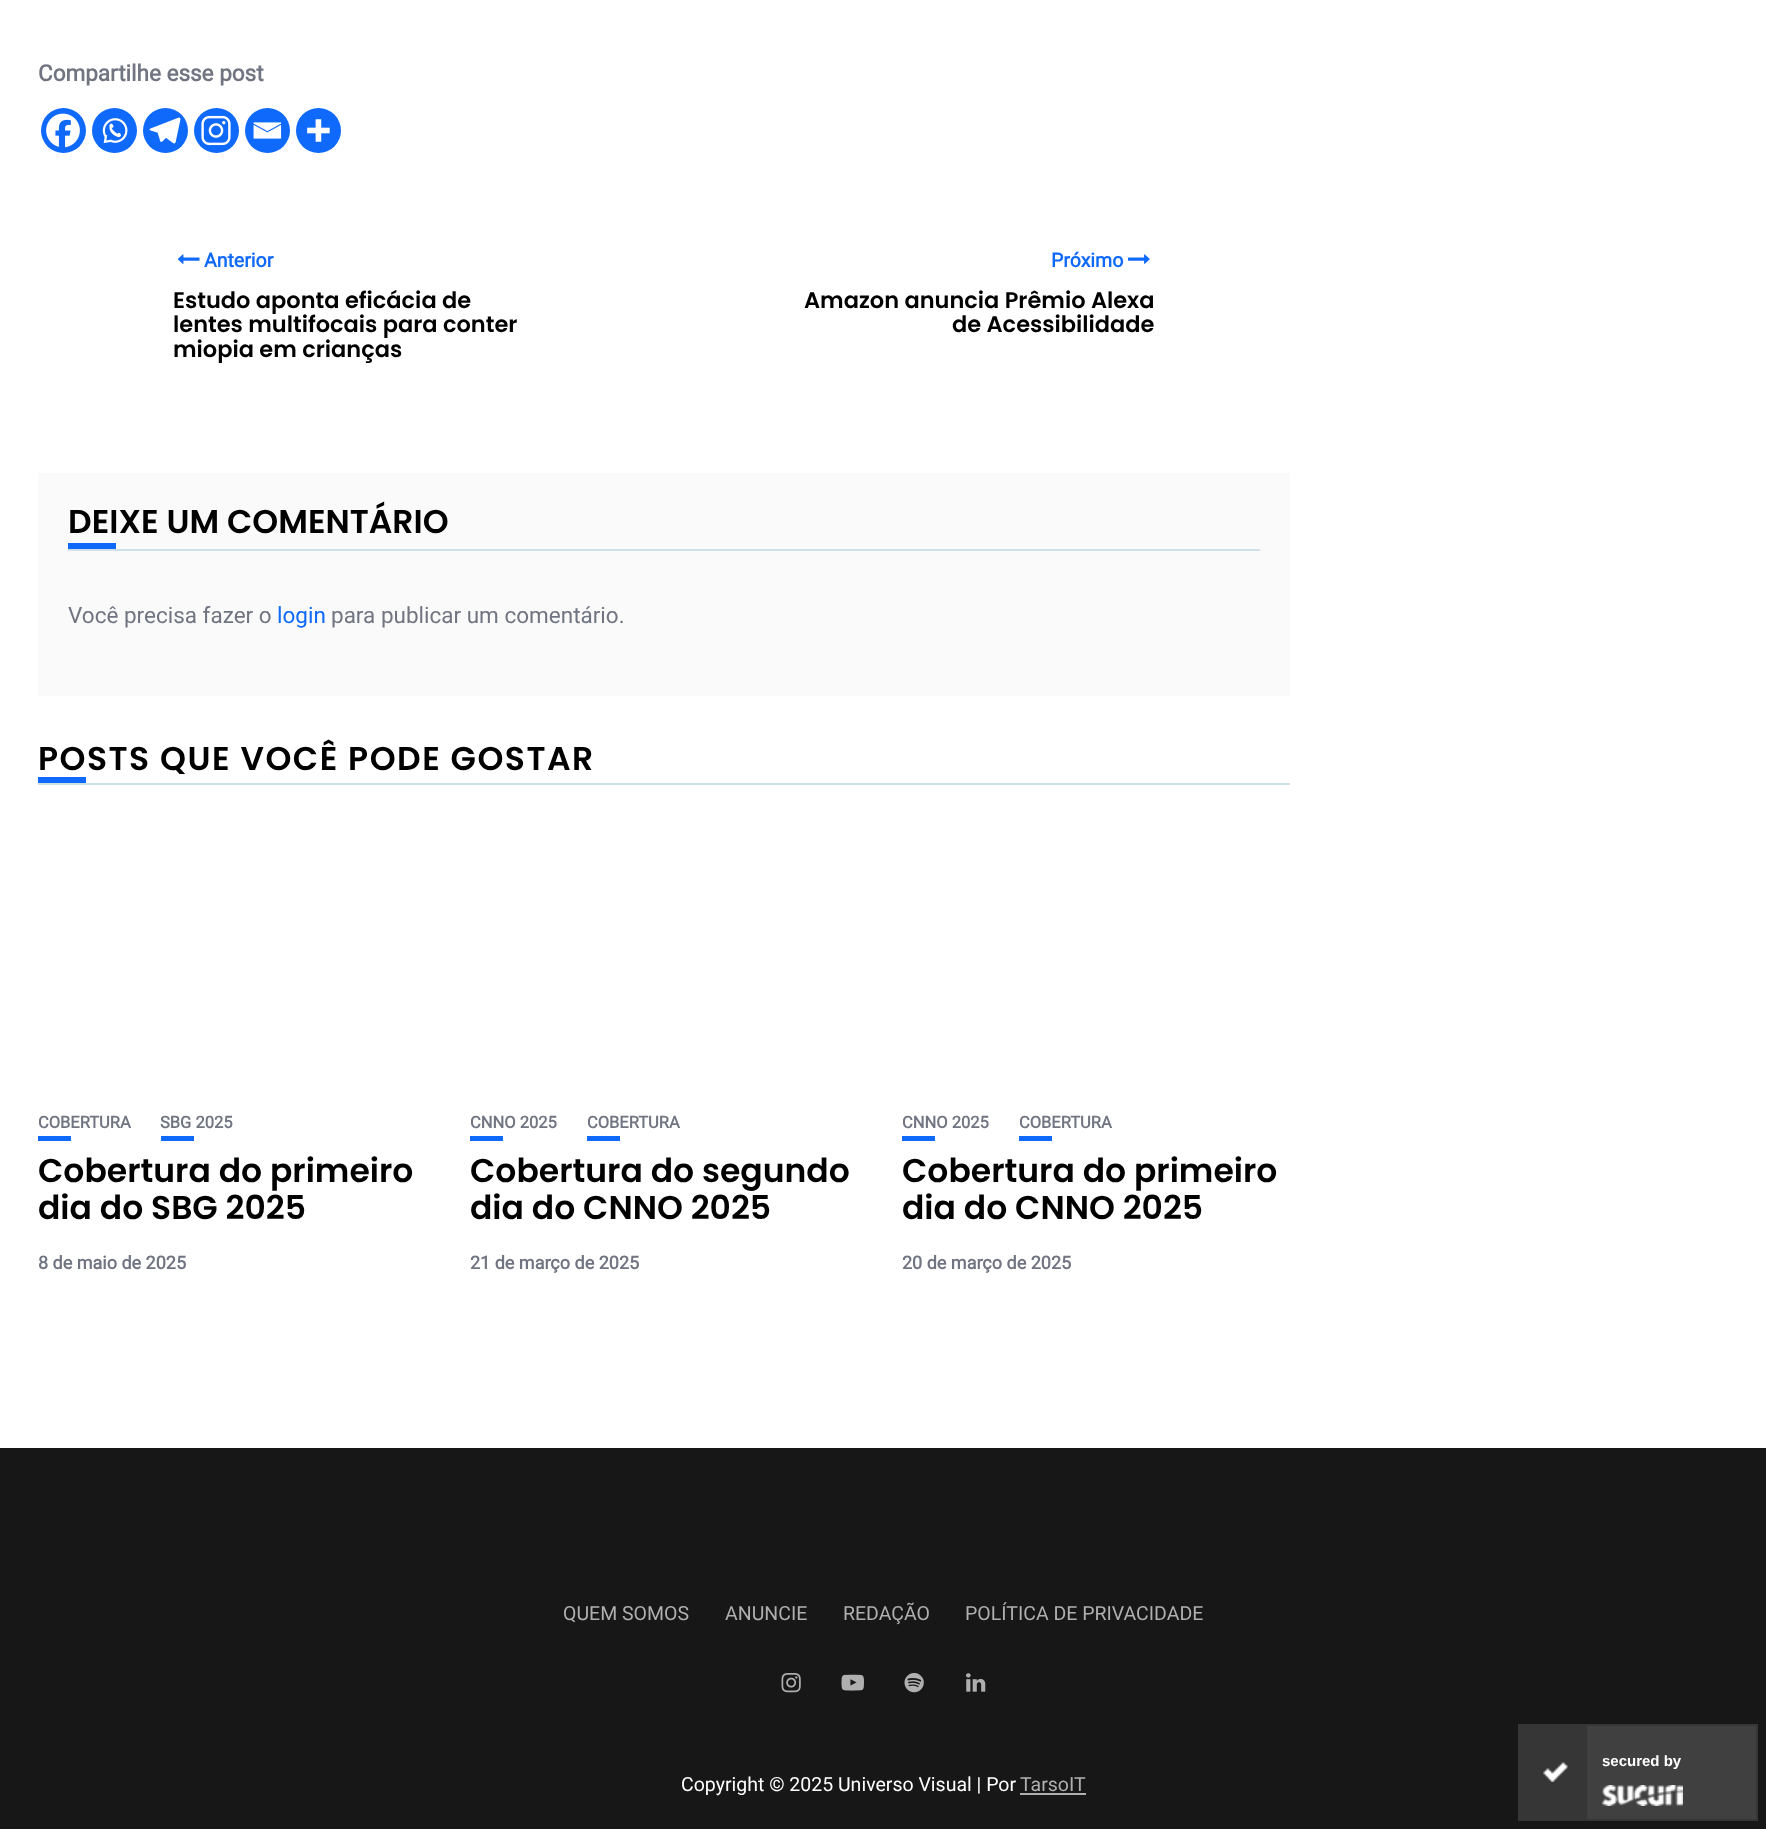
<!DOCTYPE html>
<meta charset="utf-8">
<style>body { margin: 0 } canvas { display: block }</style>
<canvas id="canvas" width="1766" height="1829"></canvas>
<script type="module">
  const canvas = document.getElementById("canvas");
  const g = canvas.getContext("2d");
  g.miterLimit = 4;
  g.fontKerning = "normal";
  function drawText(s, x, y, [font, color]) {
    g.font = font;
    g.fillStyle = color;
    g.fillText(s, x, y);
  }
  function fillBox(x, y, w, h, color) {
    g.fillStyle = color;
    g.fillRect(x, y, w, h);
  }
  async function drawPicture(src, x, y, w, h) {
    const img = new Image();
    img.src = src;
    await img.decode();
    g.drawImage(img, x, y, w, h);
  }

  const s1 = ["bold 22.5px Roboto", "#717582"];
  const s2 = ["bold 19.5px Roboto", "#0F69FA"];
  const s3 = ["600 22.5px Poppins", "#000000"];
  const s4 = ["600 33px Poppins", "#000000"];
  const s5 = ["22.5px Roboto", "#717582"];
  const s6 = ["22.5px Roboto", "#0F69FA"];
  const s7 = ["bold 16.5px Roboto", "#717582"];
  const s8 = ["bold 18px Roboto", "#717582"];
  const s9 = ["19.5px Roboto", "#AFAFAF"];
  const s10 = ["19.5px Roboto", "#FFFFFF"];
  const s11 = ["bold 15px Liberation Sans", "#FFFFFF"];

  fillBox(0, 0, 1766, 1829, "#FFFFFF");
  drawText("Compartilhe esse post", 38, 81, s1);
  g.fillStyle = "#0F69FA";
  g.beginPath();
  g.arc(63.5, 130.5, 22.5, 0, Math.PI * 2);
  g.fill();
  await drawPicture("pic1.png", 46, 113, 34, 35);
  g.beginPath();
  g.arc(114.5, 130.5, 22.5, 0, Math.PI * 2);
  g.fill();
  await drawPicture("pic2.png", 102, 118, 26, 26);
  g.beginPath();
  g.arc(165.5, 130.5, 22.5, 0, Math.PI * 2);
  g.fill();
  await drawPicture("pic3.png", 149, 117, 32, 27);
  g.beginPath();
  g.arc(216.5, 130.5, 22.5, 0, Math.PI * 2);
  g.fill();
  await drawPicture("pic4.png", 201, 115, 30, 31);
  g.beginPath();
  g.arc(267.5, 130.5, 22.5, 0, Math.PI * 2);
  g.fill();
  await drawPicture("pic5.png", 253, 122, 29, 17);
  g.beginPath();
  g.arc(318.5, 130.5, 22.5, 0, Math.PI * 2);
  g.fill();
  await drawPicture("pic6.png", 307, 119, 23, 23);
  await drawPicture("pic7.png", 177, 254, 23, 10);
  drawText("Anterior", 204, 267, s2);
  drawText("Estudo aponta eficácia de", 173, 308, s3);
  drawText("lentes multifocais para conter", 173, 332, s3);
  drawText("miopia em crianças", 173, 357, s3);
  drawText("Próximo", 1051, 267, s2);
  await drawPicture("pic8.png", 1128, 254, 22, 10);
  drawText("Amazon anuncia Prêmio Alexa", 804, 308, s3);
  drawText("de Acessibilidade", 952, 332, s3);
  fillBox(38, 473, 1252, 223, "#FAFAFA");
  fillBox(68, 549, 1192, 2, "#CFE0E9");
  drawText("DEIXE UM COMENTÁRIO", 68, 533, s4);
  fillBox(68, 543, 48, 6, "#0F69FA");
  drawText("Você precisa fazer o", 68, 623, s5);
  drawText("login", 277, 623, s6);
  drawText("para publicar um comentário.", 331, 623, s5);
  fillBox(38, 783, 1252, 2, "#CFE0E9");
  g.letterSpacing = "1.5px";
  drawText("POSTS QUE VOCÊ PODE GOSTAR", 38, 770, s4);
  fillBox(38, 777, 48, 6, "#0F69FA");
  g.letterSpacing = "0px";
  drawText("COBERTURA", 38, 1128, s7);
  fillBox(38, 1136, 33, 5, "#0F69FA");
  drawText("SBG 2025", 160, 1128, s7);
  fillBox(161, 1136, 33, 5, "#0F69FA");
  drawText("Cobertura do primeiro", 38, 1182, s4);
  drawText("dia do SBG 2025", 38, 1219, s4);
  drawText("8 de maio de 2025", 38, 1269, s8);
  drawText("CNNO 2025", 470, 1128, s7);
  fillBox(470, 1136, 33, 5, "#0F69FA");
  drawText("COBERTURA", 587, 1128, s7);
  fillBox(587, 1136, 33, 5, "#0F69FA");
  drawText("Cobertura do segundo", 470, 1182, s4);
  drawText("dia do CNNO 2025", 470, 1219, s4);
  drawText("21 de março de 2025", 470, 1269, s8);
  drawText("CNNO 2025", 902, 1128, s7);
  fillBox(902, 1136, 33, 5, "#0F69FA");
  drawText("COBERTURA", 1019, 1128, s7);
  fillBox(1019, 1136, 33, 5, "#0F69FA");
  drawText("Cobertura do primeiro", 902, 1182, s4);
  drawText("dia do CNNO 2025", 902, 1219, s4);
  drawText("20 de março de 2025", 902, 1269, s8);
  fillBox(0, 1448, 1766, 381, "#171717");
  drawText("QUEM SOMOS", 563, 1620, s9);
  drawText("ANUNCIE", 725, 1620, s9);
  drawText("REDAÇÃO", 843, 1620, s9);
  drawText("POLÍTICA DE PRIVACIDADE", 965, 1620, s9);
  await drawPicture("pic9.png", 781, 1673, 20, 20);
  await drawPicture("pic10.png", 841, 1674, 23, 17);
  await drawPicture("pic11.png", 904, 1673, 20, 20);
  await drawPicture("pic12.png", 966, 1673, 20, 19);
  drawText("Copyright © 2025 Universo Visual | Por", 681, 1791, s10);
  drawText("TarsoIT", 1020, 1791, s9);
  fillBox(1020, 1793, 66, 2, "#AFAFAF");
  fillBox(1587, 1726, 169, 93, "#404040");
  g.strokeStyle = "#363636";
  g.lineWidth = 2;
  g.strokeRect(1519, 1725, 238, 95);
  fillBox(1520, 1726, 67, 93, "#363636");
  await drawPicture("pic13.png", 1543, 1762, 25, 20);
  drawText("secured by", 1602, 1766, s11);
  await drawPicture("pic14.png", 1602, 1785, 81, 21);
</script>
